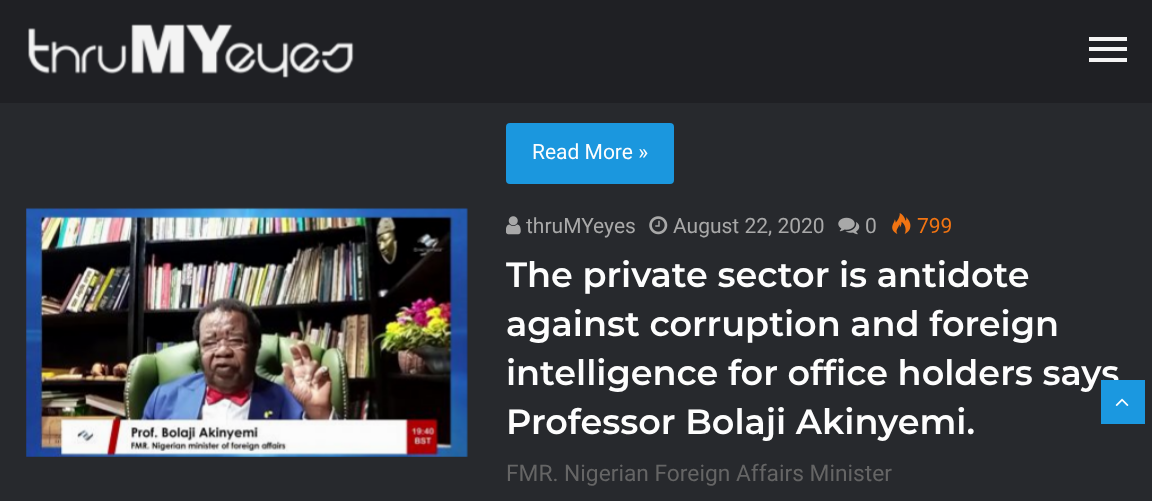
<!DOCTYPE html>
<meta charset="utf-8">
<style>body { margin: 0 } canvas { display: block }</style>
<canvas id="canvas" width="1152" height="501"></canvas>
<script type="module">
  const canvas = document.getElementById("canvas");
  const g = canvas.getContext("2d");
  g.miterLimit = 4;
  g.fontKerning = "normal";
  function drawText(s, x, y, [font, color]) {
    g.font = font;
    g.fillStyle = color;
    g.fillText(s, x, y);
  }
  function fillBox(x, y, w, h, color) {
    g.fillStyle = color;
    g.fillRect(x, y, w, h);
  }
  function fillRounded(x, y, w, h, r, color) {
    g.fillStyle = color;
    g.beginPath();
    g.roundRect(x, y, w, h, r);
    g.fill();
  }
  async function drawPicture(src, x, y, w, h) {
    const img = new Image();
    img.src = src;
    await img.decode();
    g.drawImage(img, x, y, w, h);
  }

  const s1 = ["21px Roboto", "#FDFDFD"];
  const s2 = ["21px Roboto", "#A9A9A9"];
  const s3 = ["21px Roboto", "#F27412"];
  const s4 = ["100 35px Montserrat", "#FDFDFD"];
  const s5 = ["22.75px Roboto", "#656565"];

  fillBox(0, 0, 1152, 501, "#27292D");
  fillBox(0, 0, 1152, 103, "#1F2024");
  await drawPicture("pic1.png", 28, 24, 326, 54);
  fillBox(1089, 47, 38, 4, "#F4F4F4");
  fillBox(1089, 37, 38, 4, "#F4F4F4");
  fillBox(1089, 58, 38, 4, "#F4F4F4");
  fillRounded(506, 123, 168, 61, 4, "#1B97DE");
  drawText("Read More »", 532, 159, s1);
  await drawPicture("pic2.png", 26, 207, 442, 250);
  await drawPicture("pic3.png", 506, 216, 15, 19);
  drawText("thruMYeyes", 526, 233, s2);
  await drawPicture("pic4.png", 649, 216, 19, 19);
  drawText("August 22, 2020", 673, 233, s2);
  await drawPicture("pic5.png", 838, 217, 22, 18);
  drawText("0", 865, 233, s2);
  await drawPicture("pic6.png", 892, 213, 19, 21);
  drawText("799", 917, 233, s3);
  drawText("The private sector is antidote", 506, 287, s4);
  drawText("against corruption and foreign", 506, 336, s4);
  drawText("intelligence for office holders says", 506, 385, s4);
  drawText("Professor Bolaji Akinyemi.", 506, 434, s4);
  drawText("FMR. Nigerian Foreign Affairs Minister", 506, 481, s5);
  fillBox(1101, 380, 44, 44, "#1B98E0");
  await drawPicture("pic7.png", 1115, 398, 14, 8);
</script>
